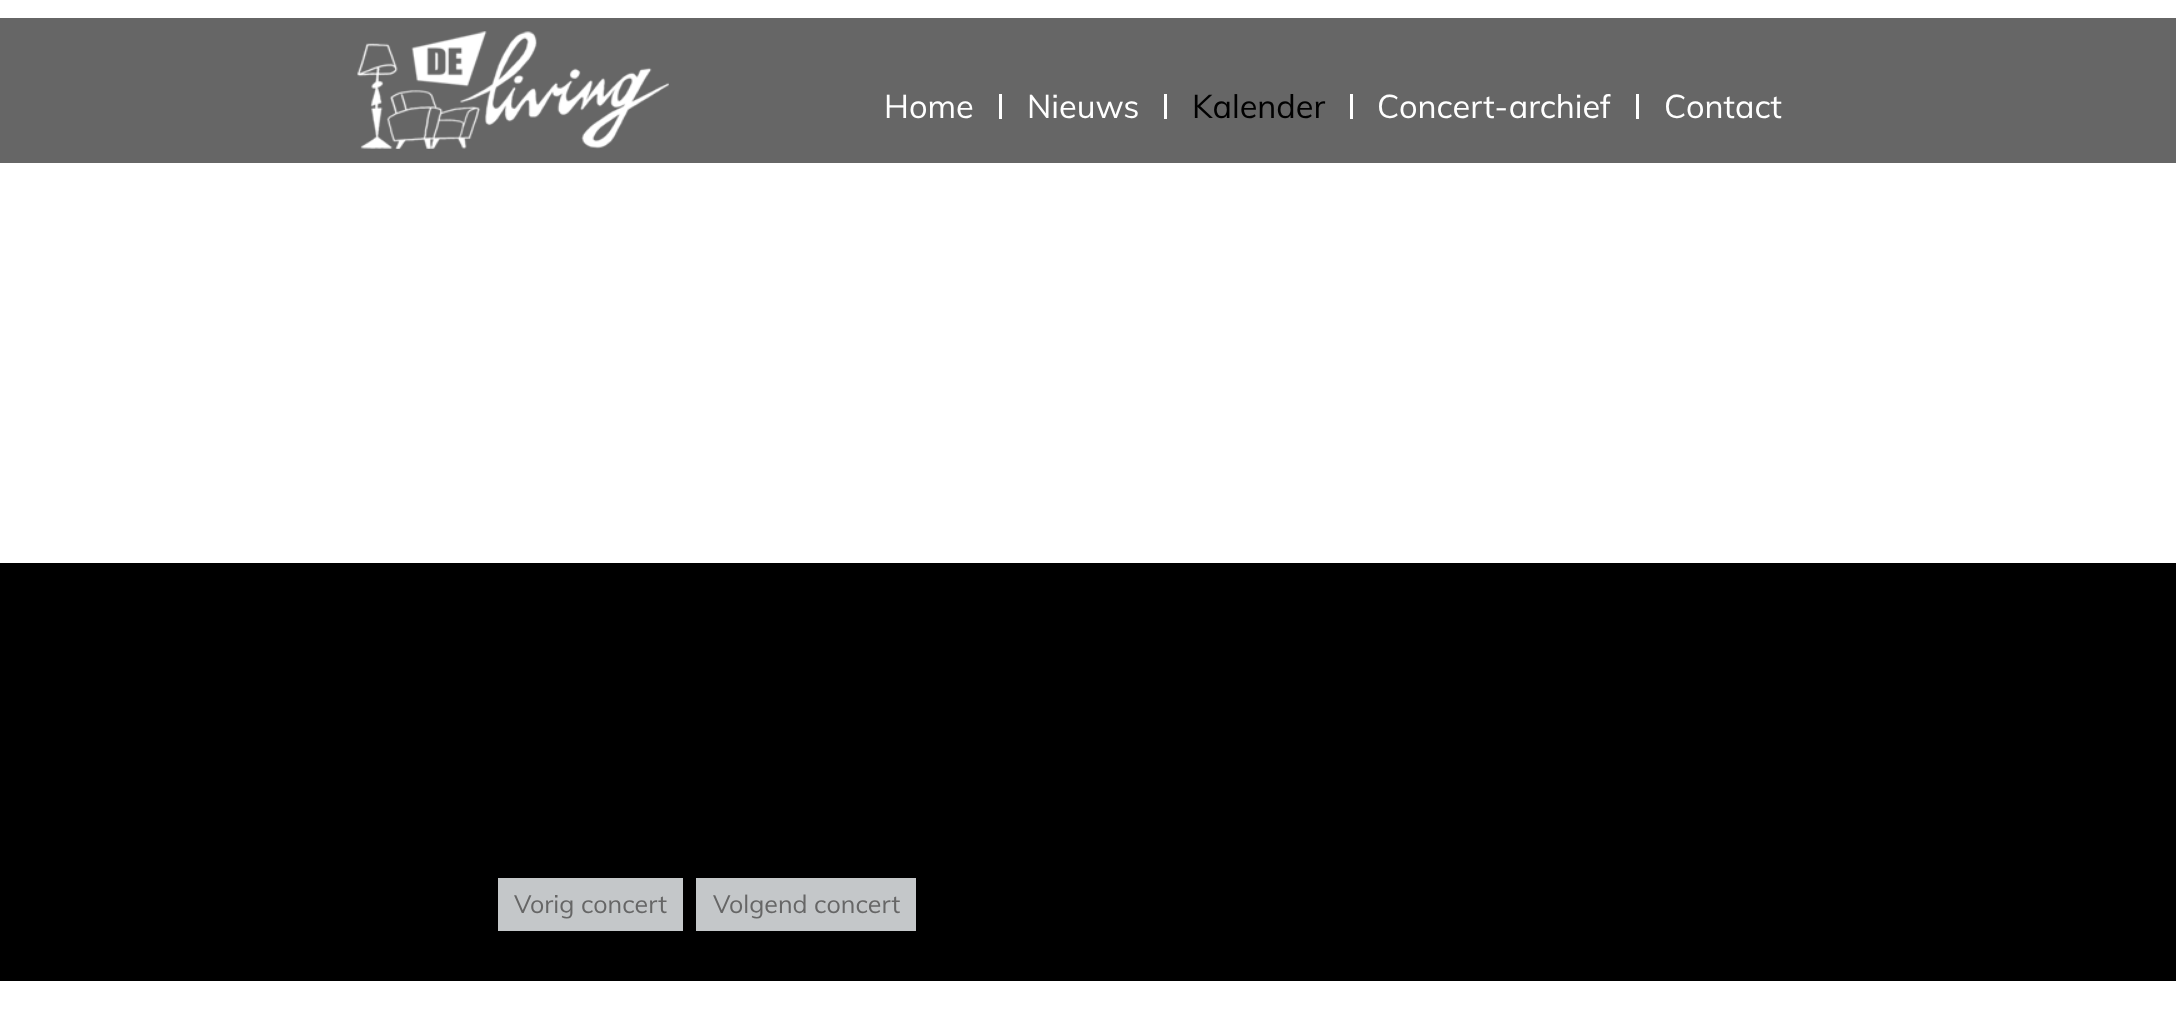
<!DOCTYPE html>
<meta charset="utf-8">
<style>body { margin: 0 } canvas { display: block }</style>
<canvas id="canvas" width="2176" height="1016"></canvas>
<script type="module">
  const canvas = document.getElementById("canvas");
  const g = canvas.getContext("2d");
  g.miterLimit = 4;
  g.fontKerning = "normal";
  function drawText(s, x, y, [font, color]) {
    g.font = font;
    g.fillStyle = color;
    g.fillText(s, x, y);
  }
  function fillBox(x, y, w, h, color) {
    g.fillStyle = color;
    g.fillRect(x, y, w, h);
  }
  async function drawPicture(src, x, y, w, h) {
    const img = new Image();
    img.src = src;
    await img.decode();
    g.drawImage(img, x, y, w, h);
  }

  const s1 = ["32.5px Muli", "#FFFFFF"];
  const s2 = ["32.5px Muli", "#000000"];
  const s3 = ["25px Muli", "#666666"];

  fillBox(0, 0, 2176, 1016, "#FFFFFF");
  fillBox(0, 18, 2176, 145, "#666666");
  await drawPicture("pic1.png", 357, 31, 312, 118);
  fillBox(999, 94, 3, 25, "#FFFFFF");
  drawText("Home", 884, 118, s1);
  fillBox(1164, 94, 3, 25, "#FFFFFF");
  drawText("Nieuws", 1027, 118, s1);
  fillBox(1350, 94, 3, 25, "#FFFFFF");
  drawText("Kalender", 1192, 118, s2);
  fillBox(1636, 94, 3, 25, "#FFFFFF");
  drawText("Concert-archief", 1377, 118, s1);
  drawText("Contact", 1664, 118, s1);
  fillBox(0, 563, 2176, 418, "#000000");
  fillBox(498, 878, 185, 53, "#C4C7C9");
  drawText("Vorig concert", 514, 913, s3);
  fillBox(696, 878, 220, 53, "#C4C7C9");
  drawText("Volgend concert", 713, 913, s3);
</script>
